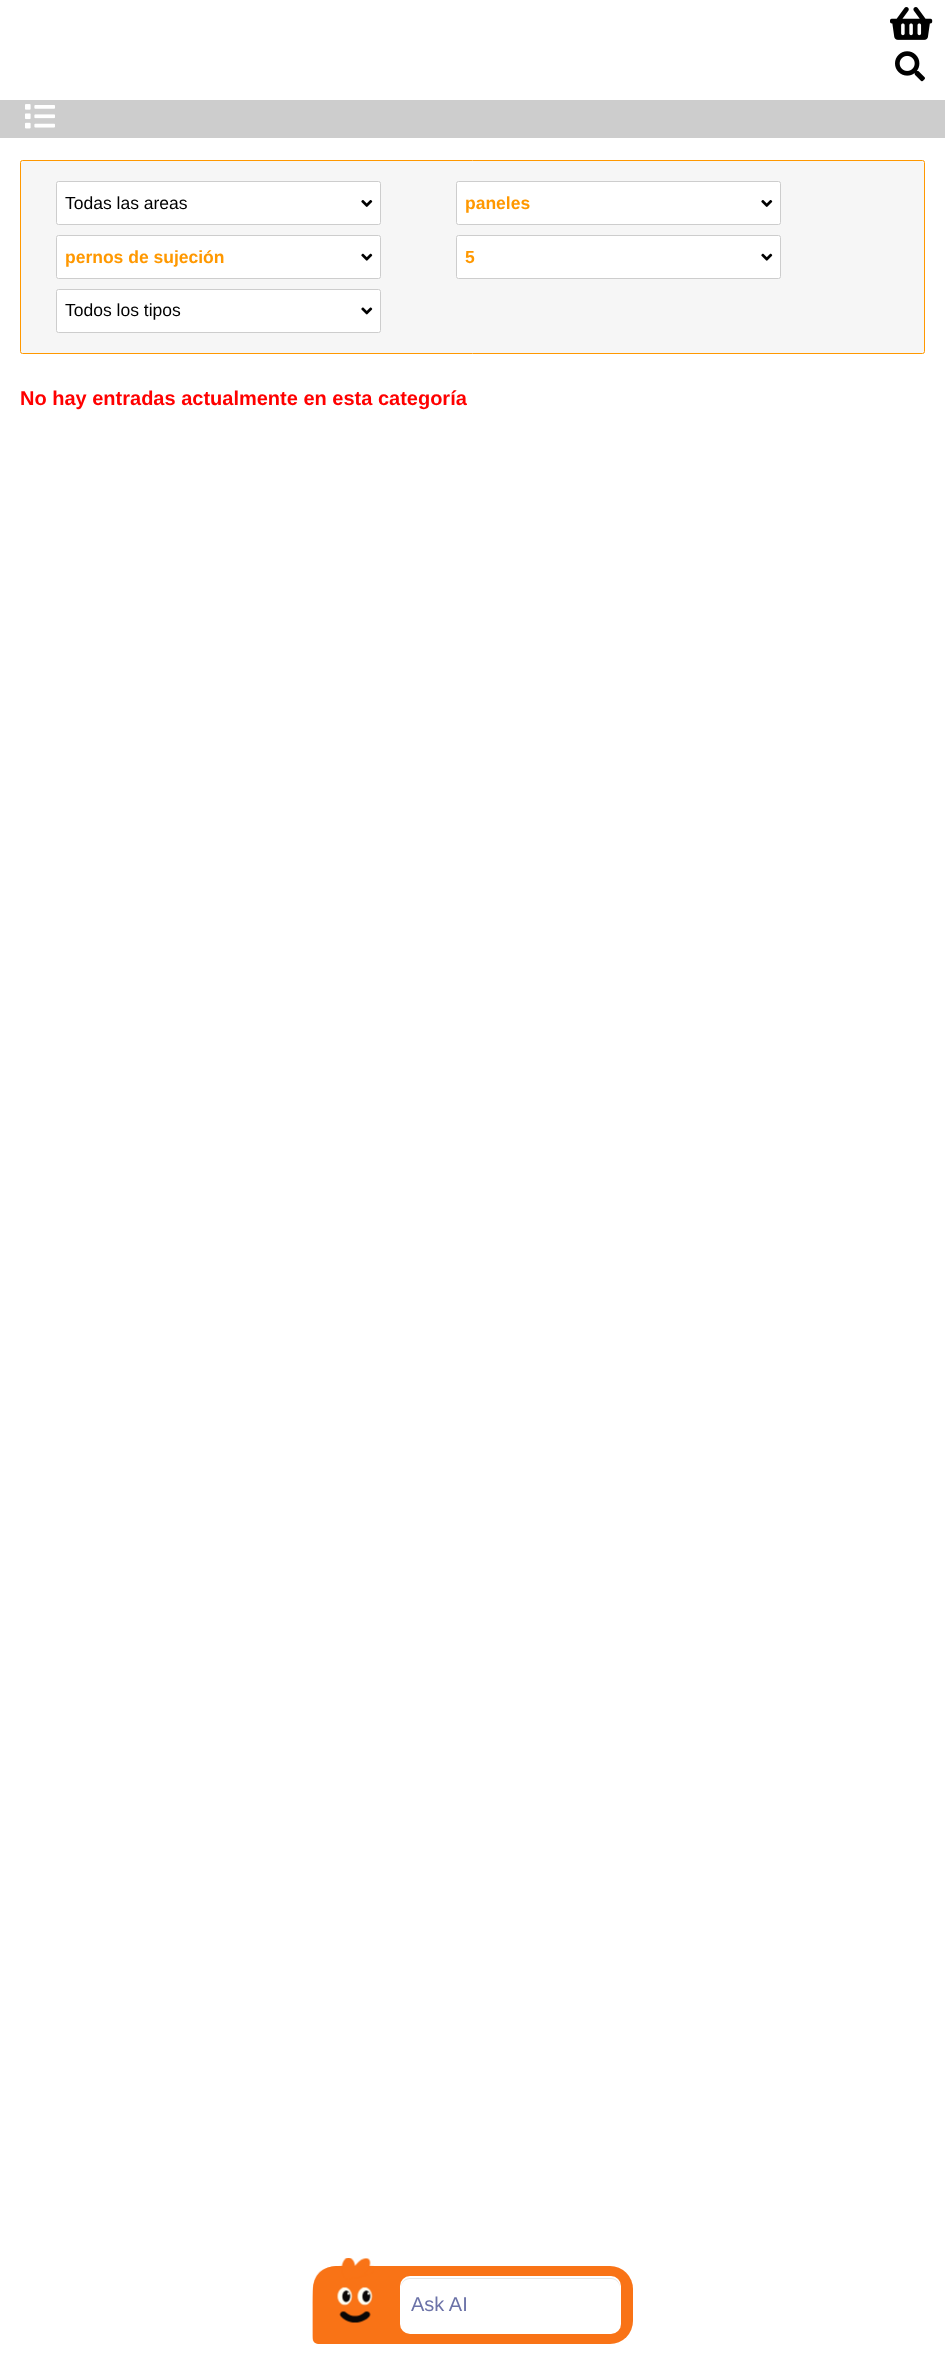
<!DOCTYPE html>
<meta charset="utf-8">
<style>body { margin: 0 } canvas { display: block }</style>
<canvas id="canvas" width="945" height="2363"></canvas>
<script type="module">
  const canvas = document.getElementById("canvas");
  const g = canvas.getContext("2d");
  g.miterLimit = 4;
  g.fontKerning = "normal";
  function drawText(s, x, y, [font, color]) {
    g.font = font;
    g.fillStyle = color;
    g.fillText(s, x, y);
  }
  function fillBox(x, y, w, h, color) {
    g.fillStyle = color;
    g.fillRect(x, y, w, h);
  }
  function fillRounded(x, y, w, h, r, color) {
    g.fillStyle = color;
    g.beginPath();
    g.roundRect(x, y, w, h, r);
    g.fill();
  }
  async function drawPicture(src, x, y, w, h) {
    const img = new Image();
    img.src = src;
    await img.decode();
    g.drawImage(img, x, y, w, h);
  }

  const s1 = ["17.5px Liberation Sans", "#000000"];
  const s2 = ["bold 17.5px Liberation Sans", "#FF9800"];
  const s3 = ["bold 20px Liberation Sans", "#FF0000"];
  const s4 = ["20px Liberation Sans", "#6C73A8"];

  fillBox(0, 0, 945, 2363, "#FFFFFF");
  await drawPicture("pic1.png", 890, 7, 43, 33);
  await drawPicture("pic2.png", 895, 51, 30, 31);
  fillBox(0, 100, 945, 38, "#CDCDCD");
  await drawPicture("pic3.png", 25, 104, 30, 25);
  g.fillStyle = "#F6F6F6";
  g.beginPath();
  g.roundRect(20.5, 160.5, 904, 193, 2);
  g.fill();
  g.strokeStyle = "#FF9800";
  g.stroke();
  g.fillStyle = "#FFFFFF";
  g.beginPath();
  g.roundRect(56.5, 181.5, 324, 43, 2);
  g.fill();
  g.strokeStyle = "#CDCDCD";
  g.stroke();
  drawText("Todas las areas", 65, 209, s1);
  await drawPicture("pic4.png", 361, 200, 12, 7);
  g.fillStyle = "#FFFFFF";
  g.beginPath();
  g.roundRect(456.5, 181.5, 324, 43, 2);
  g.fill();
  g.stroke();
  drawText("paneles", 465, 209, s2);
  await drawPicture("pic4.png", 761, 200, 12, 7);
  g.fillStyle = "#FFFFFF";
  g.beginPath();
  g.roundRect(56.5, 235.5, 324, 43, 2);
  g.fill();
  g.stroke();
  drawText("pernos de sujeción", 65, 263, s2);
  await drawPicture("pic5.png", 361, 253, 12, 8);
  g.fillStyle = "#FFFFFF";
  g.beginPath();
  g.roundRect(456.5, 235.5, 324, 43, 2);
  g.fill();
  g.stroke();
  drawText("5", 465, 263, s2);
  await drawPicture("pic5.png", 761, 253, 12, 8);
  g.fillStyle = "#FFFFFF";
  g.beginPath();
  g.roundRect(56.5, 289.5, 324, 43, 2);
  g.fill();
  g.stroke();
  drawText("Todos los tipos", 65, 316, s1);
  await drawPicture("pic6.png", 361, 307, 12, 8);
  drawText("No hay entradas actualmente en esta categoría", 20, 405, s3);
  g.fillStyle = "#F97316";
  g.beginPath();
  g.roundRect(313, 2266, 320, 78, [23, 23, 23, 5]);
  g.fill();
  await drawPicture("pic7.png", 312, 2258, 62, 85);
  fillRounded(400, 2276, 221, 58, 10, "#FFFFFF");
  g.fillStyle = "#E6E6E6";
  g.beginPath();
  g.moveTo(410, 2279);
  g.lineTo(611, 2279);
  g.bezierCurveTo(616, 2279, 620, 2283, 620, 2288);
  g.lineTo(620, 2287);
  g.bezierCurveTo(620, 2282, 616, 2278, 611, 2278);
  g.lineTo(410, 2278);
  g.bezierCurveTo(405, 2278, 401, 2282, 401, 2287);
  g.lineTo(401, 2288);
  g.bezierCurveTo(401, 2283, 405, 2279, 410, 2279);
  g.closePath();
  g.fill();
  drawText("Ask AI", 411, 2311, s4);
</script>
